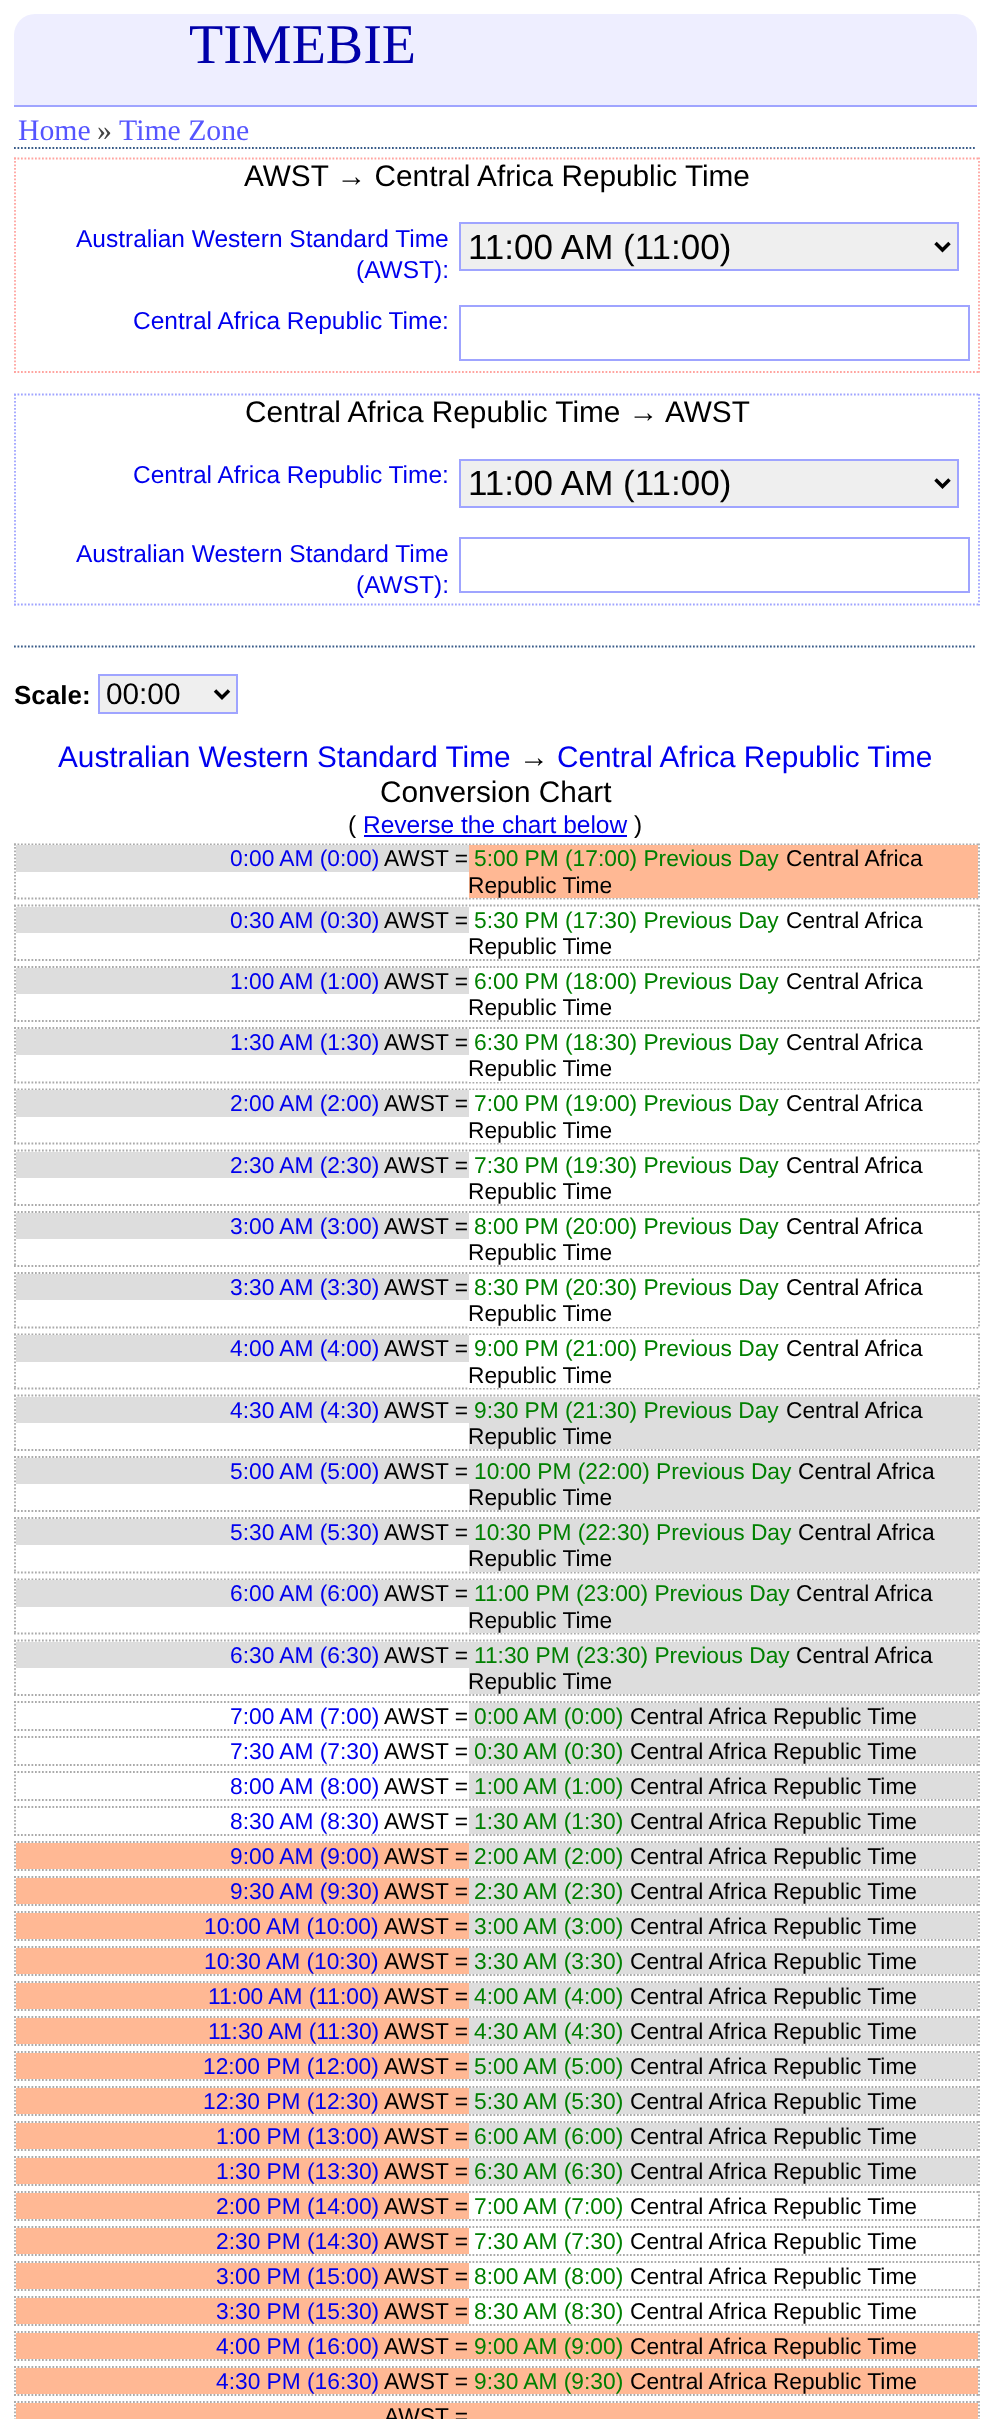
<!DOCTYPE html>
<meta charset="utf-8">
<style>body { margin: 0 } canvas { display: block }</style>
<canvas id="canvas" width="989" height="2419"></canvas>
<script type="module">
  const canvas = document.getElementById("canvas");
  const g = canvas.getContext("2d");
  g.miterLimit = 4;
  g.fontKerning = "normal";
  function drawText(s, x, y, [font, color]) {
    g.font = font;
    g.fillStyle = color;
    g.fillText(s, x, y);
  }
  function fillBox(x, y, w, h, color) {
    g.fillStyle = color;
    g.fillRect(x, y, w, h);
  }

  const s1 = ["56px Liberation Serif", "#0000AA"];
  const s2 = ["29.75px Liberation Serif", "#5555FF"];
  const s3 = ["29.75px Liberation Serif", "#444444"];
  const s4 = ["29.75px Liberation Sans", "#000000"];
  const s5 = ["24.5px Liberation Sans", "#0000EE"];
  const s6 = ["35px Liberation Sans", "#000000"];
  const s7 = ["bold 26px Liberation Sans", "#000000"];
  const s8 = ["29.75px Liberation Sans", "#0000EE"];
  const s9 = ["24.5px Liberation Sans", "#000000"];
  const s10 = ["22.75px Liberation Sans", "#0000EE"];
  const s11 = ["22.75px Liberation Sans", "#000000"];
  const s12 = ["22.75px Liberation Sans", "#008000"];

  fillBox(0, 0, 989, 2419, "#FFFFFF");
  g.fillStyle = "#EEEEFF";
  g.beginPath();
  g.roundRect(14, 14, 963, 93, [21, 21, 0, 0]);
  g.fill();
  fillBox(14, 105, 963, 2, "#9FA4FF");
  drawText("TIMEBIE", 189, 63, s1);
  g.beginPath();
  g.moveTo(14, 148);
  g.lineTo(976.5, 148);
  g.strokeStyle = "#385B88";
  g.lineWidth = 1.8;
  g.setLineDash([1.75, 1.75]);
  g.stroke();
  drawText("Home", 18, 140, s2);
  drawText("»", 97, 140, s3);
  drawText("Time Zone", 119, 140, s2);
  g.beginPath();
  g.moveTo(14, 158.5);
  g.lineTo(980, 158.5);
  g.strokeStyle = "#FFA49F";
  g.stroke();
  g.beginPath();
  g.moveTo(979, 157.5);
  g.lineTo(979, 373);
  g.stroke();
  g.beginPath();
  g.moveTo(14, 372);
  g.lineTo(980, 372);
  g.stroke();
  g.beginPath();
  g.moveTo(15, 157.5);
  g.lineTo(15, 373);
  g.stroke();
  drawText("AWST → Central Africa Republic Time", 244, 186, s4);
  drawText("Australian Western Standard Time", 76, 247, s5);
  drawText("(AWST):", 356, 278, s5);
  g.fillStyle = "#EFEFEF";
  g.beginPath();
  g.rect(460, 223, 498, 47);
  g.fill();
  g.strokeStyle = "#9FA4FF";
  g.lineWidth = 2;
  g.setLineDash([]);
  g.stroke();
  g.beginPath();
  g.moveTo(935.5, 243);
  g.lineTo(942.5, 250);
  g.lineTo(949.5, 243);
  g.strokeStyle = "#000000";
  g.lineWidth = 3.5;
  g.stroke();
  drawText("11:00 AM (11:00)", 468, 259, s6);
  drawText("Central Africa Republic Time:", 133, 329, s5);
  g.strokeStyle = "#9FA4FF";
  g.lineWidth = 2;
  g.strokeRect(460, 306, 509, 54);
  g.beginPath();
  g.moveTo(14, 394.5);
  g.lineTo(980, 394.5);
  g.lineWidth = 1.8;
  g.setLineDash([1.75, 1.75]);
  g.stroke();
  g.beginPath();
  g.moveTo(979, 394);
  g.lineTo(979, 605.5);
  g.stroke();
  g.beginPath();
  g.moveTo(14, 604.5);
  g.lineTo(980, 604.5);
  g.stroke();
  g.beginPath();
  g.moveTo(15, 394);
  g.lineTo(15, 605.5);
  g.stroke();
  drawText("Central Africa Republic Time → AWST", 245, 422, s4);
  drawText("Central Africa Republic Time:", 133, 483, s5);
  g.fillStyle = "#EFEFEF";
  g.beginPath();
  g.rect(460, 460, 498, 47);
  g.fill();
  g.lineWidth = 2;
  g.setLineDash([]);
  g.stroke();
  g.beginPath();
  g.moveTo(935.5, 479.5);
  g.lineTo(942.5, 486.5);
  g.lineTo(949.5, 479.5);
  g.strokeStyle = "#000000";
  g.lineWidth = 3.5;
  g.stroke();
  drawText("11:00 AM (11:00)", 468, 495, s6);
  drawText("Australian Western Standard Time", 76, 562, s5);
  drawText("(AWST):", 356, 593, s5);
  g.strokeStyle = "#9FA4FF";
  g.lineWidth = 2;
  g.strokeRect(460, 538, 509, 54);
  g.beginPath();
  g.moveTo(14, 646.5);
  g.lineTo(976.5, 646.5);
  g.strokeStyle = "#385B88";
  g.lineWidth = 1.8;
  g.setLineDash([1.75, 1.75]);
  g.stroke();
  drawText("Scale:", 14, 704, s7);
  g.fillStyle = "#EFEFEF";
  g.beginPath();
  g.rect(99, 675, 138, 38);
  g.fill();
  g.strokeStyle = "#9FA4FF";
  g.lineWidth = 2;
  g.setLineDash([]);
  g.stroke();
  g.beginPath();
  g.moveTo(215, 690.5);
  g.lineTo(222, 697.5);
  g.lineTo(229, 690.5);
  g.strokeStyle = "#000000";
  g.lineWidth = 3.5;
  g.stroke();
  drawText("00:00", 106, 704, s4);
  drawText("Australian Western Standard Time", 58, 767, s8);
  drawText("→", 519, 767, s4);
  drawText("Central Africa Republic Time", 557, 767, s8);
  drawText("Conversion Chart", 380, 802, s4);
  drawText("(", 348, 833, s9);
  drawText("Reverse the chart below", 363, 833, s5);
  fillBox(364, 835, 263, 2, "#0000EE");
  drawText(")", 634, 833, s9);
  g.beginPath();
  g.moveTo(14, 844.5);
  g.lineTo(980, 844.5);
  g.strokeStyle = "#AAAAAA";
  g.lineWidth = 1.8;
  g.setLineDash([1.75, 1.75]);
  g.stroke();
  g.beginPath();
  g.moveTo(979, 843.5);
  g.lineTo(979, 899.5);
  g.stroke();
  g.beginPath();
  g.moveTo(14, 898.5);
  g.lineTo(980, 898.5);
  g.stroke();
  g.beginPath();
  g.moveTo(15, 843.5);
  g.lineTo(15, 899.5);
  g.stroke();
  fillBox(16, 845, 453, 27, "#DDDDDD");
  drawText("0:00 AM (0:00)", 230, 866, s10);
  drawText("AWST =", 384, 866, s11);
  fillBox(469, 845, 509, 53, "#FFB894");
  drawText("5:00 PM (17:00) Previous Day", 474, 866, s12);
  drawText("Central Africa", 786, 866, s11);
  drawText("Republic Time", 468, 893, s11);
  g.beginPath();
  g.moveTo(14, 905.5);
  g.lineTo(980, 905.5);
  g.stroke();
  g.beginPath();
  g.moveTo(979, 905);
  g.lineTo(979, 961);
  g.stroke();
  g.beginPath();
  g.moveTo(14, 960);
  g.lineTo(980, 960);
  g.stroke();
  g.beginPath();
  g.moveTo(15, 905);
  g.lineTo(15, 961);
  g.stroke();
  fillBox(16, 907, 453, 26, "#DDDDDD");
  drawText("0:30 AM (0:30)", 230, 928, s10);
  drawText("AWST =", 384, 928, s11);
  drawText("5:30 PM (17:30) Previous Day", 474, 928, s12);
  drawText("Central Africa", 786, 928, s11);
  drawText("Republic Time", 468, 954, s11);
  g.beginPath();
  g.moveTo(14, 967);
  g.lineTo(980, 967);
  g.stroke();
  g.beginPath();
  g.moveTo(979, 966);
  g.lineTo(979, 1022);
  g.stroke();
  g.beginPath();
  g.moveTo(14, 1021);
  g.lineTo(980, 1021);
  g.stroke();
  g.beginPath();
  g.moveTo(15, 966);
  g.lineTo(15, 1022);
  g.stroke();
  fillBox(16, 968, 453, 26, "#DDDDDD");
  drawText("1:00 AM (1:00)", 230, 989, s10);
  drawText("AWST =", 384, 989, s11);
  drawText("6:00 PM (18:00) Previous Day", 474, 989, s12);
  drawText("Central Africa", 786, 989, s11);
  drawText("Republic Time", 468, 1015, s11);
  g.beginPath();
  g.moveTo(14, 1028);
  g.lineTo(980, 1028);
  g.stroke();
  g.beginPath();
  g.moveTo(979, 1027);
  g.lineTo(979, 1083);
  g.stroke();
  g.beginPath();
  g.moveTo(14, 1082.5);
  g.lineTo(980, 1082.5);
  g.stroke();
  g.beginPath();
  g.moveTo(15, 1027);
  g.lineTo(15, 1083);
  g.stroke();
  fillBox(16, 1029, 453, 26, "#DDDDDD");
  drawText("1:30 AM (1:30)", 230, 1050, s10);
  drawText("AWST =", 384, 1050, s11);
  fillBox(469, 1081, 509, 1, "#FFFFFF");
  drawText("6:30 PM (18:30) Previous Day", 474, 1050, s12);
  drawText("Central Africa", 786, 1050, s11);
  drawText("Republic Time", 468, 1076, s11);
  g.beginPath();
  g.moveTo(14, 1089.5);
  g.lineTo(980, 1089.5);
  g.stroke();
  g.beginPath();
  g.moveTo(979, 1088.5);
  g.lineTo(979, 1144.5);
  g.stroke();
  g.beginPath();
  g.moveTo(14, 1143.5);
  g.lineTo(980, 1143.5);
  g.stroke();
  g.beginPath();
  g.moveTo(15, 1088.5);
  g.lineTo(15, 1144.5);
  g.stroke();
  fillBox(16, 1090, 453, 27, "#DDDDDD");
  drawText("2:00 AM (2:00)", 230, 1111, s10);
  drawText("AWST =", 384, 1111, s11);
  fillBox(469, 1090, 509, 53, "#FFFFFF");
  drawText("7:00 PM (19:00) Previous Day", 474, 1111, s12);
  drawText("Central Africa", 786, 1111, s11);
  drawText("Republic Time", 468, 1138, s11);
  g.beginPath();
  g.moveTo(14, 1150.5);
  g.lineTo(980, 1150.5);
  g.stroke();
  g.beginPath();
  g.moveTo(979, 1150);
  g.lineTo(979, 1206);
  g.stroke();
  g.beginPath();
  g.moveTo(14, 1205);
  g.lineTo(980, 1205);
  g.stroke();
  g.beginPath();
  g.moveTo(15, 1150);
  g.lineTo(15, 1206);
  g.stroke();
  fillBox(16, 1152, 453, 26, "#DDDDDD");
  drawText("2:30 AM (2:30)", 230, 1173, s10);
  drawText("AWST =", 384, 1173, s11);
  drawText("7:30 PM (19:30) Previous Day", 474, 1173, s12);
  drawText("Central Africa", 786, 1173, s11);
  drawText("Republic Time", 468, 1199, s11);
  g.beginPath();
  g.moveTo(14, 1212);
  g.lineTo(980, 1212);
  g.stroke();
  g.beginPath();
  g.moveTo(979, 1211);
  g.lineTo(979, 1267);
  g.stroke();
  g.beginPath();
  g.moveTo(14, 1266);
  g.lineTo(980, 1266);
  g.stroke();
  g.beginPath();
  g.moveTo(15, 1211);
  g.lineTo(15, 1267);
  g.stroke();
  fillBox(16, 1213, 453, 26, "#DDDDDD");
  drawText("3:00 AM (3:00)", 230, 1234, s10);
  drawText("AWST =", 384, 1234, s11);
  drawText("8:00 PM (20:00) Previous Day", 474, 1234, s12);
  drawText("Central Africa", 786, 1234, s11);
  drawText("Republic Time", 468, 1260, s11);
  g.beginPath();
  g.moveTo(14, 1273);
  g.lineTo(980, 1273);
  g.stroke();
  g.beginPath();
  g.moveTo(979, 1272);
  g.lineTo(979, 1328);
  g.stroke();
  g.beginPath();
  g.moveTo(14, 1327.5);
  g.lineTo(980, 1327.5);
  g.stroke();
  g.beginPath();
  g.moveTo(15, 1272);
  g.lineTo(15, 1328);
  g.stroke();
  fillBox(16, 1274, 453, 26, "#DDDDDD");
  drawText("3:30 AM (3:30)", 230, 1295, s10);
  drawText("AWST =", 384, 1295, s11);
  fillBox(469, 1326, 509, 1, "#FFFFFF");
  drawText("8:30 PM (20:30) Previous Day", 474, 1295, s12);
  drawText("Central Africa", 786, 1295, s11);
  drawText("Republic Time", 468, 1321, s11);
  g.beginPath();
  g.moveTo(14, 1334.5);
  g.lineTo(980, 1334.5);
  g.stroke();
  g.beginPath();
  g.moveTo(979, 1333.5);
  g.lineTo(979, 1389.5);
  g.stroke();
  g.beginPath();
  g.moveTo(14, 1388.5);
  g.lineTo(980, 1388.5);
  g.stroke();
  g.beginPath();
  g.moveTo(15, 1333.5);
  g.lineTo(15, 1389.5);
  g.stroke();
  fillBox(16, 1335, 453, 27, "#DDDDDD");
  drawText("4:00 AM (4:00)", 230, 1356, s10);
  drawText("AWST =", 384, 1356, s11);
  fillBox(469, 1335, 509, 53, "#FFFFFF");
  drawText("9:00 PM (21:00) Previous Day", 474, 1356, s12);
  drawText("Central Africa", 786, 1356, s11);
  drawText("Republic Time", 468, 1383, s11);
  g.beginPath();
  g.moveTo(14, 1395.5);
  g.lineTo(980, 1395.5);
  g.stroke();
  g.beginPath();
  g.moveTo(979, 1395);
  g.lineTo(979, 1451);
  g.stroke();
  g.beginPath();
  g.moveTo(14, 1450);
  g.lineTo(980, 1450);
  g.stroke();
  g.beginPath();
  g.moveTo(15, 1395);
  g.lineTo(15, 1451);
  g.stroke();
  fillBox(16, 1397, 453, 26, "#DDDDDD");
  drawText("4:30 AM (4:30)", 230, 1418, s10);
  drawText("AWST =", 384, 1418, s11);
  fillBox(469, 1397, 509, 52, "#DDDDDD");
  drawText("9:30 PM (21:30) Previous Day", 474, 1418, s12);
  drawText("Central Africa", 786, 1418, s11);
  drawText("Republic Time", 468, 1444, s11);
  g.beginPath();
  g.moveTo(14, 1457);
  g.lineTo(980, 1457);
  g.stroke();
  g.beginPath();
  g.moveTo(979, 1456);
  g.lineTo(979, 1512);
  g.stroke();
  g.beginPath();
  g.moveTo(14, 1511);
  g.lineTo(980, 1511);
  g.stroke();
  g.beginPath();
  g.moveTo(15, 1456);
  g.lineTo(15, 1512);
  g.stroke();
  fillBox(16, 1458, 453, 26, "#DDDDDD");
  drawText("5:00 AM (5:00)", 230, 1479, s10);
  drawText("AWST =", 384, 1479, s11);
  fillBox(469, 1458, 509, 52, "#DDDDDD");
  drawText("10:00 PM (22:00) Previous Day", 474, 1479, s12);
  drawText("Central Africa", 798, 1479, s11);
  drawText("Republic Time", 468, 1505, s11);
  g.beginPath();
  g.moveTo(14, 1518);
  g.lineTo(980, 1518);
  g.stroke();
  g.beginPath();
  g.moveTo(979, 1517);
  g.lineTo(979, 1573);
  g.stroke();
  g.beginPath();
  g.moveTo(14, 1572.5);
  g.lineTo(980, 1572.5);
  g.stroke();
  g.beginPath();
  g.moveTo(15, 1517);
  g.lineTo(15, 1573);
  g.stroke();
  fillBox(16, 1519, 453, 26, "#DDDDDD");
  drawText("5:30 AM (5:30)", 230, 1540, s10);
  drawText("AWST =", 384, 1540, s11);
  fillBox(469, 1519, 509, 53, "#DDDDDD");
  drawText("10:30 PM (22:30) Previous Day", 474, 1540, s12);
  drawText("Central Africa", 798, 1540, s11);
  drawText("Republic Time", 468, 1566, s11);
  g.beginPath();
  g.moveTo(14, 1579.5);
  g.lineTo(980, 1579.5);
  g.stroke();
  g.beginPath();
  g.moveTo(979, 1578.5);
  g.lineTo(979, 1634.5);
  g.stroke();
  g.beginPath();
  g.moveTo(14, 1633.5);
  g.lineTo(980, 1633.5);
  g.stroke();
  g.beginPath();
  g.moveTo(15, 1578.5);
  g.lineTo(15, 1634.5);
  g.stroke();
  fillBox(16, 1580, 453, 27, "#DDDDDD");
  drawText("6:00 AM (6:00)", 230, 1601, s10);
  drawText("AWST =", 384, 1601, s11);
  fillBox(469, 1580, 509, 53, "#DDDDDD");
  drawText("11:00 PM (23:00) Previous Day", 474, 1601, s12);
  drawText("Central Africa", 796, 1601, s11);
  drawText("Republic Time", 468, 1628, s11);
  g.beginPath();
  g.moveTo(14, 1640.5);
  g.lineTo(980, 1640.5);
  g.stroke();
  g.beginPath();
  g.moveTo(979, 1640);
  g.lineTo(979, 1696);
  g.stroke();
  g.beginPath();
  g.moveTo(14, 1695);
  g.lineTo(980, 1695);
  g.stroke();
  g.beginPath();
  g.moveTo(15, 1640);
  g.lineTo(15, 1696);
  g.stroke();
  fillBox(16, 1642, 453, 26, "#DDDDDD");
  drawText("6:30 AM (6:30)", 230, 1663, s10);
  drawText("AWST =", 384, 1663, s11);
  fillBox(469, 1642, 509, 52, "#DDDDDD");
  drawText("11:30 PM (23:30) Previous Day", 474, 1663, s12);
  drawText("Central Africa", 796, 1663, s11);
  drawText("Republic Time", 468, 1689, s11);
  g.beginPath();
  g.moveTo(14, 1702);
  g.lineTo(980, 1702);
  g.stroke();
  g.beginPath();
  g.moveTo(979, 1701);
  g.lineTo(979, 1731);
  g.stroke();
  g.beginPath();
  g.moveTo(14, 1730);
  g.lineTo(980, 1730);
  g.stroke();
  g.beginPath();
  g.moveTo(15, 1701);
  g.lineTo(15, 1731);
  g.stroke();
  drawText("7:00 AM (7:00)", 230, 1724, s10);
  drawText("AWST =", 384, 1724, s11);
  fillBox(469, 1703, 509, 26, "#DDDDDD");
  drawText("0:00 AM (0:00)", 474, 1724, s12);
  drawText("Central Africa Republic Time", 630, 1724, s11);
  g.beginPath();
  g.moveTo(14, 1737);
  g.lineTo(980, 1737);
  g.stroke();
  g.beginPath();
  g.moveTo(979, 1736);
  g.lineTo(979, 1766);
  g.stroke();
  g.beginPath();
  g.moveTo(14, 1765);
  g.lineTo(980, 1765);
  g.stroke();
  g.beginPath();
  g.moveTo(15, 1736);
  g.lineTo(15, 1766);
  g.stroke();
  drawText("7:30 AM (7:30)", 230, 1759, s10);
  drawText("AWST =", 384, 1759, s11);
  fillBox(469, 1738, 509, 26, "#DDDDDD");
  drawText("0:30 AM (0:30)", 474, 1759, s12);
  drawText("Central Africa Republic Time", 630, 1759, s11);
  g.beginPath();
  g.moveTo(14, 1772);
  g.lineTo(980, 1772);
  g.stroke();
  g.beginPath();
  g.moveTo(979, 1771);
  g.lineTo(979, 1801);
  g.stroke();
  g.beginPath();
  g.moveTo(14, 1800);
  g.lineTo(980, 1800);
  g.stroke();
  g.beginPath();
  g.moveTo(15, 1771);
  g.lineTo(15, 1801);
  g.stroke();
  drawText("8:00 AM (8:00)", 230, 1794, s10);
  drawText("AWST =", 384, 1794, s11);
  fillBox(469, 1773, 509, 26, "#DDDDDD");
  drawText("1:00 AM (1:00)", 474, 1794, s12);
  drawText("Central Africa Republic Time", 630, 1794, s11);
  g.beginPath();
  g.moveTo(14, 1807);
  g.lineTo(980, 1807);
  g.stroke();
  g.beginPath();
  g.moveTo(979, 1806);
  g.lineTo(979, 1836);
  g.stroke();
  g.beginPath();
  g.moveTo(14, 1835);
  g.lineTo(980, 1835);
  g.stroke();
  g.beginPath();
  g.moveTo(15, 1806);
  g.lineTo(15, 1836);
  g.stroke();
  drawText("8:30 AM (8:30)", 230, 1829, s10);
  drawText("AWST =", 384, 1829, s11);
  fillBox(469, 1808, 509, 26, "#DDDDDD");
  drawText("1:30 AM (1:30)", 474, 1829, s12);
  drawText("Central Africa Republic Time", 630, 1829, s11);
  g.beginPath();
  g.moveTo(14, 1842);
  g.lineTo(980, 1842);
  g.stroke();
  g.beginPath();
  g.moveTo(979, 1841);
  g.lineTo(979, 1871);
  g.stroke();
  g.beginPath();
  g.moveTo(14, 1870);
  g.lineTo(980, 1870);
  g.stroke();
  g.beginPath();
  g.moveTo(15, 1841);
  g.lineTo(15, 1871);
  g.stroke();
  fillBox(16, 1843, 453, 26, "#FFB894");
  drawText("9:00 AM (9:00)", 230, 1864, s10);
  drawText("AWST =", 384, 1864, s11);
  fillBox(469, 1843, 509, 26, "#DDDDDD");
  drawText("2:00 AM (2:00)", 474, 1864, s12);
  drawText("Central Africa Republic Time", 630, 1864, s11);
  g.beginPath();
  g.moveTo(14, 1877);
  g.lineTo(980, 1877);
  g.stroke();
  g.beginPath();
  g.moveTo(979, 1876);
  g.lineTo(979, 1906);
  g.stroke();
  g.beginPath();
  g.moveTo(14, 1905);
  g.lineTo(980, 1905);
  g.stroke();
  g.beginPath();
  g.moveTo(15, 1876);
  g.lineTo(15, 1906);
  g.stroke();
  fillBox(16, 1878, 453, 26, "#FFB894");
  drawText("9:30 AM (9:30)", 230, 1899, s10);
  drawText("AWST =", 384, 1899, s11);
  fillBox(469, 1878, 509, 26, "#DDDDDD");
  drawText("2:30 AM (2:30)", 474, 1899, s12);
  drawText("Central Africa Republic Time", 630, 1899, s11);
  g.beginPath();
  g.moveTo(14, 1912);
  g.lineTo(980, 1912);
  g.stroke();
  g.beginPath();
  g.moveTo(979, 1911);
  g.lineTo(979, 1941);
  g.stroke();
  g.beginPath();
  g.moveTo(14, 1940);
  g.lineTo(980, 1940);
  g.stroke();
  g.beginPath();
  g.moveTo(15, 1911);
  g.lineTo(15, 1941);
  g.stroke();
  fillBox(16, 1913, 453, 26, "#FFB894");
  drawText("10:00 AM (10:00)", 204, 1934, s10);
  drawText("AWST =", 384, 1934, s11);
  fillBox(469, 1913, 509, 26, "#DDDDDD");
  drawText("3:00 AM (3:00)", 474, 1934, s12);
  drawText("Central Africa Republic Time", 630, 1934, s11);
  g.beginPath();
  g.moveTo(14, 1947);
  g.lineTo(980, 1947);
  g.stroke();
  g.beginPath();
  g.moveTo(979, 1946);
  g.lineTo(979, 1976);
  g.stroke();
  g.beginPath();
  g.moveTo(14, 1975);
  g.lineTo(980, 1975);
  g.stroke();
  g.beginPath();
  g.moveTo(15, 1946);
  g.lineTo(15, 1976);
  g.stroke();
  fillBox(16, 1948, 453, 26, "#FFB894");
  drawText("10:30 AM (10:30)", 204, 1969, s10);
  drawText("AWST =", 384, 1969, s11);
  fillBox(469, 1948, 509, 26, "#DDDDDD");
  drawText("3:30 AM (3:30)", 474, 1969, s12);
  drawText("Central Africa Republic Time", 630, 1969, s11);
  g.beginPath();
  g.moveTo(14, 1982);
  g.lineTo(980, 1982);
  g.stroke();
  g.beginPath();
  g.moveTo(979, 1981);
  g.lineTo(979, 2011);
  g.stroke();
  g.beginPath();
  g.moveTo(14, 2010);
  g.lineTo(980, 2010);
  g.stroke();
  g.beginPath();
  g.moveTo(15, 1981);
  g.lineTo(15, 2011);
  g.stroke();
  fillBox(16, 1983, 453, 26, "#FFB894");
  drawText("11:00 AM (11:00)", 208, 2004, s10);
  drawText("AWST =", 384, 2004, s11);
  fillBox(469, 1983, 509, 26, "#DDDDDD");
  drawText("4:00 AM (4:00)", 474, 2004, s12);
  drawText("Central Africa Republic Time", 630, 2004, s11);
  g.beginPath();
  g.moveTo(14, 2017);
  g.lineTo(980, 2017);
  g.stroke();
  g.beginPath();
  g.moveTo(979, 2016);
  g.lineTo(979, 2046);
  g.stroke();
  g.beginPath();
  g.moveTo(14, 2045);
  g.lineTo(980, 2045);
  g.stroke();
  g.beginPath();
  g.moveTo(15, 2016);
  g.lineTo(15, 2046);
  g.stroke();
  fillBox(16, 2018, 453, 26, "#FFB894");
  drawText("11:30 AM (11:30)", 208, 2039, s10);
  drawText("AWST =", 384, 2039, s11);
  fillBox(469, 2018, 509, 26, "#DDDDDD");
  drawText("4:30 AM (4:30)", 474, 2039, s12);
  drawText("Central Africa Republic Time", 630, 2039, s11);
  g.beginPath();
  g.moveTo(14, 2052);
  g.lineTo(980, 2052);
  g.stroke();
  g.beginPath();
  g.moveTo(979, 2051);
  g.lineTo(979, 2081);
  g.stroke();
  g.beginPath();
  g.moveTo(14, 2080);
  g.lineTo(980, 2080);
  g.stroke();
  g.beginPath();
  g.moveTo(15, 2051);
  g.lineTo(15, 2081);
  g.stroke();
  fillBox(16, 2053, 453, 26, "#FFB894");
  drawText("12:00 PM (12:00)", 203, 2074, s10);
  drawText("AWST =", 384, 2074, s11);
  fillBox(469, 2053, 509, 26, "#DDDDDD");
  drawText("5:00 AM (5:00)", 474, 2074, s12);
  drawText("Central Africa Republic Time", 630, 2074, s11);
  g.beginPath();
  g.moveTo(14, 2087);
  g.lineTo(980, 2087);
  g.stroke();
  g.beginPath();
  g.moveTo(979, 2086);
  g.lineTo(979, 2116);
  g.stroke();
  g.beginPath();
  g.moveTo(14, 2115);
  g.lineTo(980, 2115);
  g.stroke();
  g.beginPath();
  g.moveTo(15, 2086);
  g.lineTo(15, 2116);
  g.stroke();
  fillBox(16, 2088, 453, 26, "#FFB894");
  drawText("12:30 PM (12:30)", 203, 2109, s10);
  drawText("AWST =", 384, 2109, s11);
  fillBox(469, 2088, 509, 26, "#DDDDDD");
  drawText("5:30 AM (5:30)", 474, 2109, s12);
  drawText("Central Africa Republic Time", 630, 2109, s11);
  g.beginPath();
  g.moveTo(14, 2122);
  g.lineTo(980, 2122);
  g.stroke();
  g.beginPath();
  g.moveTo(979, 2121);
  g.lineTo(979, 2151);
  g.stroke();
  g.beginPath();
  g.moveTo(14, 2150);
  g.lineTo(980, 2150);
  g.stroke();
  g.beginPath();
  g.moveTo(15, 2121);
  g.lineTo(15, 2151);
  g.stroke();
  fillBox(16, 2123, 453, 26, "#FFB894");
  drawText("1:00 PM (13:00)", 216, 2144, s10);
  drawText("AWST =", 384, 2144, s11);
  fillBox(469, 2123, 509, 26, "#DDDDDD");
  drawText("6:00 AM (6:00)", 474, 2144, s12);
  drawText("Central Africa Republic Time", 630, 2144, s11);
  g.beginPath();
  g.moveTo(14, 2157);
  g.lineTo(980, 2157);
  g.stroke();
  g.beginPath();
  g.moveTo(979, 2156);
  g.lineTo(979, 2186);
  g.stroke();
  g.beginPath();
  g.moveTo(14, 2185);
  g.lineTo(980, 2185);
  g.stroke();
  g.beginPath();
  g.moveTo(15, 2156);
  g.lineTo(15, 2186);
  g.stroke();
  fillBox(16, 2158, 453, 26, "#FFB894");
  drawText("1:30 PM (13:30)", 216, 2179, s10);
  drawText("AWST =", 384, 2179, s11);
  fillBox(469, 2158, 509, 26, "#DDDDDD");
  drawText("6:30 AM (6:30)", 474, 2179, s12);
  drawText("Central Africa Republic Time", 630, 2179, s11);
  g.beginPath();
  g.moveTo(14, 2192);
  g.lineTo(980, 2192);
  g.stroke();
  g.beginPath();
  g.moveTo(979, 2191);
  g.lineTo(979, 2221);
  g.stroke();
  g.beginPath();
  g.moveTo(14, 2220);
  g.lineTo(980, 2220);
  g.stroke();
  g.beginPath();
  g.moveTo(15, 2191);
  g.lineTo(15, 2221);
  g.stroke();
  fillBox(16, 2193, 453, 26, "#FFB894");
  drawText("2:00 PM (14:00)", 216, 2214, s10);
  drawText("AWST =", 384, 2214, s11);
  drawText("7:00 AM (7:00)", 474, 2214, s12);
  drawText("Central Africa Republic Time", 630, 2214, s11);
  g.beginPath();
  g.moveTo(14, 2227);
  g.lineTo(980, 2227);
  g.stroke();
  g.beginPath();
  g.moveTo(979, 2226);
  g.lineTo(979, 2256);
  g.stroke();
  g.beginPath();
  g.moveTo(14, 2255);
  g.lineTo(980, 2255);
  g.stroke();
  g.beginPath();
  g.moveTo(15, 2226);
  g.lineTo(15, 2256);
  g.stroke();
  fillBox(16, 2228, 453, 26, "#FFB894");
  drawText("2:30 PM (14:30)", 216, 2249, s10);
  drawText("AWST =", 384, 2249, s11);
  drawText("7:30 AM (7:30)", 474, 2249, s12);
  drawText("Central Africa Republic Time", 630, 2249, s11);
  g.beginPath();
  g.moveTo(14, 2262);
  g.lineTo(980, 2262);
  g.stroke();
  g.beginPath();
  g.moveTo(979, 2261);
  g.lineTo(979, 2291);
  g.stroke();
  g.beginPath();
  g.moveTo(14, 2290);
  g.lineTo(980, 2290);
  g.stroke();
  g.beginPath();
  g.moveTo(15, 2261);
  g.lineTo(15, 2291);
  g.stroke();
  fillBox(16, 2263, 453, 26, "#FFB894");
  drawText("3:00 PM (15:00)", 216, 2284, s10);
  drawText("AWST =", 384, 2284, s11);
  drawText("8:00 AM (8:00)", 474, 2284, s12);
  drawText("Central Africa Republic Time", 630, 2284, s11);
  g.beginPath();
  g.moveTo(14, 2297);
  g.lineTo(980, 2297);
  g.stroke();
  g.beginPath();
  g.moveTo(979, 2296);
  g.lineTo(979, 2326);
  g.stroke();
  g.beginPath();
  g.moveTo(14, 2325);
  g.lineTo(980, 2325);
  g.stroke();
  g.beginPath();
  g.moveTo(15, 2296);
  g.lineTo(15, 2326);
  g.stroke();
  fillBox(16, 2298, 453, 26, "#FFB894");
  drawText("3:30 PM (15:30)", 216, 2319, s10);
  drawText("AWST =", 384, 2319, s11);
  drawText("8:30 AM (8:30)", 474, 2319, s12);
  drawText("Central Africa Republic Time", 630, 2319, s11);
  g.beginPath();
  g.moveTo(14, 2332);
  g.lineTo(980, 2332);
  g.stroke();
  g.beginPath();
  g.moveTo(979, 2331);
  g.lineTo(979, 2361);
  g.stroke();
  g.beginPath();
  g.moveTo(14, 2360);
  g.lineTo(980, 2360);
  g.stroke();
  g.beginPath();
  g.moveTo(15, 2331);
  g.lineTo(15, 2361);
  g.stroke();
  fillBox(16, 2333, 962, 26, "#FFB894");
  drawText("4:00 PM (16:00)", 216, 2354, s10);
  drawText("AWST =", 384, 2354, s11);
  drawText("9:00 AM (9:00)", 474, 2354, s12);
  drawText("Central Africa Republic Time", 630, 2354, s11);
  g.beginPath();
  g.moveTo(14, 2367);
  g.lineTo(980, 2367);
  g.stroke();
  g.beginPath();
  g.moveTo(979, 2366);
  g.lineTo(979, 2396);
  g.stroke();
  g.beginPath();
  g.moveTo(14, 2395);
  g.lineTo(980, 2395);
  g.stroke();
  g.beginPath();
  g.moveTo(15, 2366);
  g.lineTo(15, 2396);
  g.stroke();
  fillBox(16, 2368, 962, 26, "#FFB894");
  drawText("4:30 PM (16:30)", 216, 2389, s10);
  drawText("AWST =", 384, 2389, s11);
  drawText("9:30 AM (9:30)", 474, 2389, s12);
  drawText("Central Africa Republic Time", 630, 2389, s11);
  g.beginPath();
  g.moveTo(14, 2402);
  g.lineTo(980, 2402);
  g.stroke();
  g.beginPath();
  g.moveTo(979, 2401);
  g.lineTo(979, 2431);
  g.stroke();
  g.beginPath();
  g.moveTo(15, 2401);
  g.lineTo(15, 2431);
  g.stroke();
  fillBox(16, 2403, 962, 16, "#FFB894");
  drawText("AWST =", 384, 2424, s11);
</script>
